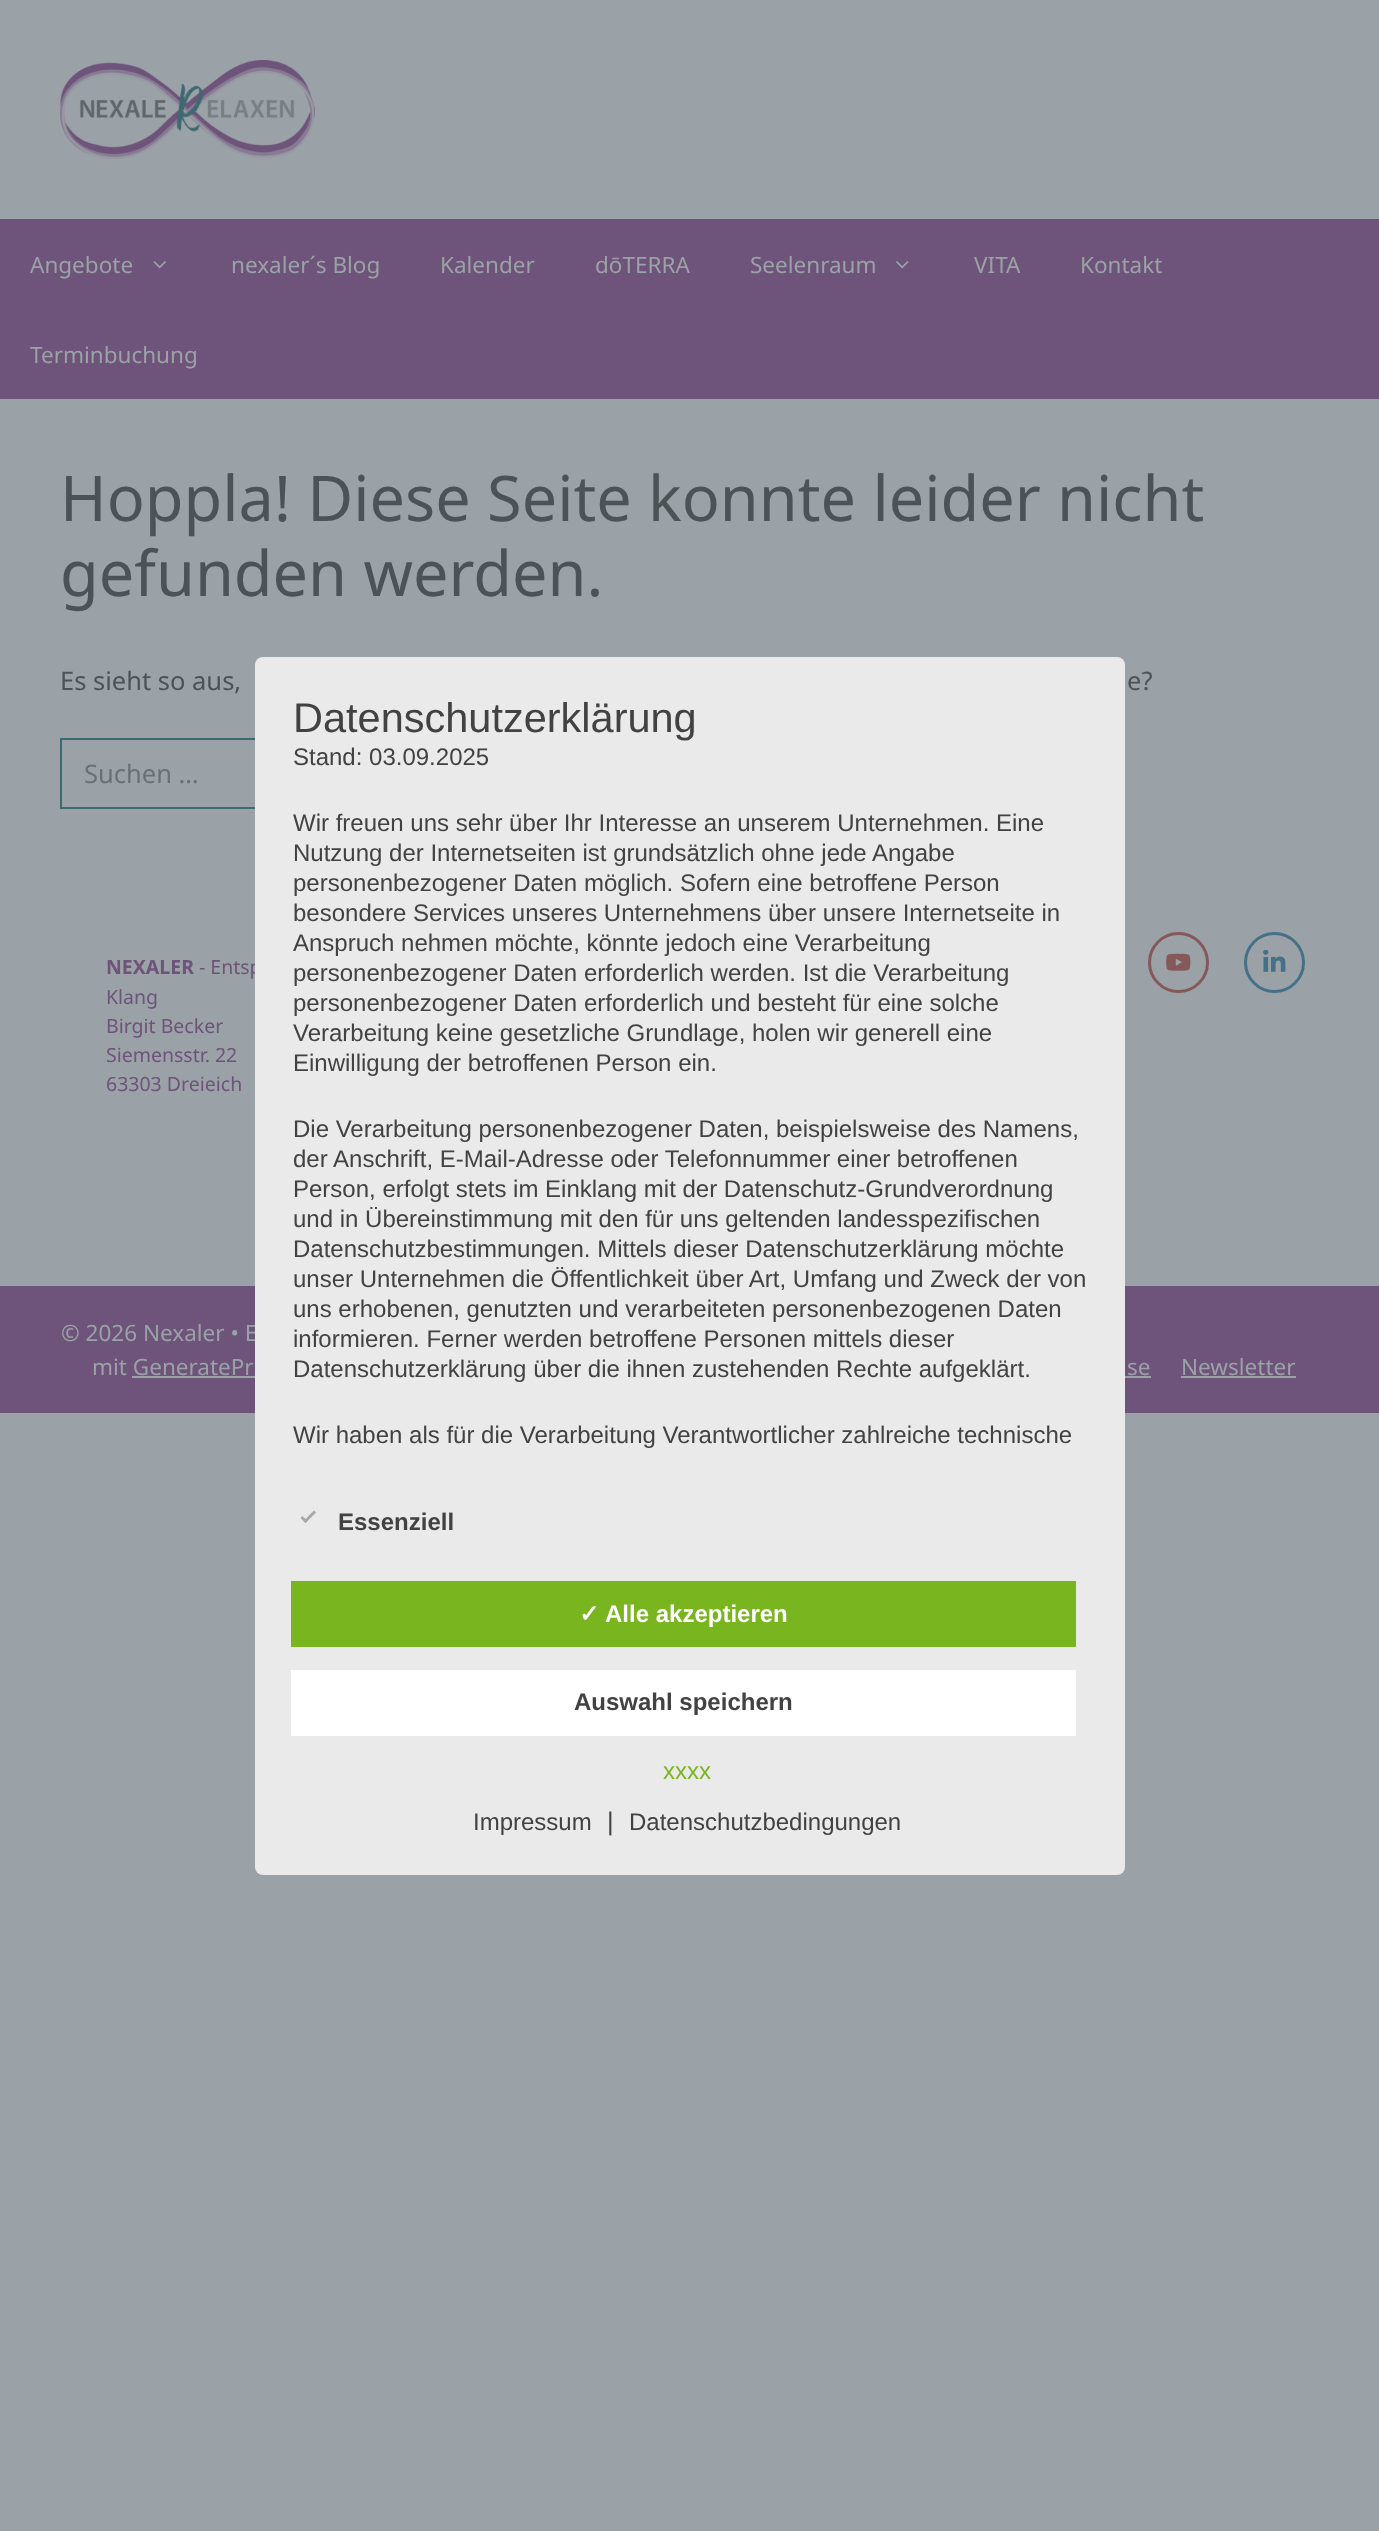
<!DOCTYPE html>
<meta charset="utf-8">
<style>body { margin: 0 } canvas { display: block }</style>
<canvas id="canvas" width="1379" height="2531"></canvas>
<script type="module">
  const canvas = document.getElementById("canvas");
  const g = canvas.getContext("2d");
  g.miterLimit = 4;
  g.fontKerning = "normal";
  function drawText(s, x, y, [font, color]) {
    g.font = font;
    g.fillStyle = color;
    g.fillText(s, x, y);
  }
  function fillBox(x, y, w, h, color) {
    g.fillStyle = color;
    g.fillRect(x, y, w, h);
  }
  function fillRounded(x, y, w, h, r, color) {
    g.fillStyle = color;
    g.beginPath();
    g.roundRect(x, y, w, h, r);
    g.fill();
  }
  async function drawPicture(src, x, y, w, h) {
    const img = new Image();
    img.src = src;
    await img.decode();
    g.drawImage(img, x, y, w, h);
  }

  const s1 = ["22.5px Noto Sans", "#9BA2A7"];
  const s2 = ["63px Noto Sans", "#4B5357"];
  const s3 = ["25.5px Noto Sans", "#4B5357"];
  const s4 = ["25.5px Noto Sans", "#697175"];
  const s5 = ["19.5px Noto Sans", "#6E537A"];
  const s6 = ["41.5px Liberation Sans", "#424242"];
  const s7 = ["24px Liberation Sans", "#424242"];
  const s8 = ["bold 24px Liberation Sans", "#424242"];
  const s9 = ["bold 24px DejaVu Sans", "#FFFFFF"];
  const s10 = ["bold 24px Liberation Sans", "#FFFFFF"];
  const s11 = ["24px Liberation Sans", "#79B51F"];
  const s12 = ["25.5px Liberation Sans", "#424242"];
  const s13 = ["bold 19.5px Noto Sans", "#6E537A"];

  fillBox(0, 0, 1379, 2531, "#9BA2A7");
  await drawPicture("pic1.png", 60, 60, 255, 99);
  fillBox(0, 219, 1379, 180, "#6E537A");
  drawText("Angebote", 30, 273, s1);
  await drawPicture("pic2.png", 153, 261, 13, 8);
  drawText("nexaler´s Blog", 231, 273, s1);
  drawText("Kalender", 440, 273, s1);
  drawText("dōTERRA", 595, 273, s1);
  drawText("Seelenraum", 750, 273, s1);
  await drawPicture("pic3.png", 896, 261, 13, 8);
  drawText("VITA", 974, 273, s1);
  drawText("Kontakt", 1080, 273, s1);
  drawText("Terminbuchung", 30, 363, s1);
  drawText("Hoppla! Diese Seite konnte leider nicht", 60, 521, s2);
  drawText("gefunden werden.", 60, 596, s2);
  drawText("Es sieht so aus,", 60, 690, s3);
  drawText("e?", 1127, 690, s3);
  g.strokeStyle = "#3F6970";
  g.lineWidth = 2;
  g.strokeRect(61, 739, 418, 69);
  drawText("Suchen …", 84, 783, s4);
  drawText("- Entsp", 199, 974, s5);
  fillBox(0, 1286, 1379, 127, "#6E537A");
  drawText("© 2026 Nexaler • E", 61, 1341, s1);
  fillRounded(255, 657, 870, 1218, 8, "#EAEAEA");
  drawText("Datenschutzerklärung", 293, 732, s6);
  drawText("Stand: 03.09.2025", 293, 765, s7);
  drawText("Wir freuen uns sehr über Ihr Interesse an unserem Unternehmen. Eine", 293, 831, s7);
  drawText("Nutzung der Internetseiten ist grundsätzlich ohne jede Angabe", 293, 861, s7);
  drawText("personenbezogener Daten möglich. Sofern eine betroffene Person", 293, 891, s7);
  drawText("besondere Services unseres Unternehmens über unsere Internetseite in", 293, 921, s7);
  drawText("Anspruch nehmen möchte, könnte jedoch eine Verarbeitung", 293, 951, s7);
  drawText("personenbezogener Daten erforderlich werden. Ist die Verarbeitung", 293, 981, s7);
  drawText("personenbezogener Daten erforderlich und besteht für eine solche", 293, 1011, s7);
  drawText("Verarbeitung keine gesetzliche Grundlage, holen wir generell eine", 293, 1041, s7);
  drawText("Einwilligung der betroffenen Person ein.", 293, 1071, s7);
  drawText("Die Verarbeitung personenbezogener Daten, beispielsweise des Namens,", 293, 1137, s7);
  drawText("der Anschrift, E-Mail-Adresse oder Telefonnummer einer betroffenen", 293, 1167, s7);
  drawText("Person, erfolgt stets im Einklang mit der Datenschutz-Grundverordnung", 293, 1197, s7);
  drawText("und in Übereinstimmung mit den für uns geltenden landesspezifischen", 293, 1227, s7);
  drawText("Datenschutzbestimmungen. Mittels dieser Datenschutzerklärung möchte", 293, 1257, s7);
  drawText("unser Unternehmen die Öffentlichkeit über Art, Umfang und Zweck der von", 293, 1287, s7);
  drawText("uns erhobenen, genutzten und verarbeiteten personenbezogenen Daten", 293, 1317, s7);
  drawText("informieren. Ferner werden betroffene Personen mittels dieser", 293, 1347, s7);
  drawText("Datenschutzerklärung über die ihnen zustehenden Rechte aufgeklärt.", 293, 1377, s7);
  drawText("Wir haben als für die Verarbeitung Verantwortlicher zahlreiche technische", 293, 1443, s7);
  g.fillStyle = "#A7A7A7";
  g.beginPath();
  g.moveTo(314, 1510.5);
  g.lineTo(316, 1512.5);
  g.lineTo(305.5, 1523);
  g.lineTo(303.5, 1521);
  g.closePath();
  g.fill();
  g.beginPath();
  g.moveTo(302.5, 1516);
  g.lineTo(307.5, 1521);
  g.lineTo(305.5, 1523);
  g.lineTo(300.5, 1518);
  g.closePath();
  g.fill();
  drawText("Essenziell", 338, 1530, s8);
  fillBox(291, 1581, 785, 66, "#79B51F");
  drawText("✓", 579, 1622, s9);
  drawText("Alle akzeptieren", 605, 1622, s10);
  fillBox(291, 1670, 785, 66, "#FFFFFF");
  drawText("Auswahl speichern", 574, 1710, s8);
  drawText("xxxx", 663, 1779, s11);
  drawText("Impressum", 473, 1830, s7);
  drawText("|", 607, 1830, s12);
  drawText("Datenschutzbedingungen", 629, 1830, s7);
  drawText("NEXALER", 106, 974, s13);
  drawText("Klang", 106, 1004, s5);
  drawText("Birgit Becker", 106, 1033, s5);
  drawText("Siemensstr. 22", 106, 1062, s5);
  drawText("63303 Dreieich", 106, 1091, s5);
  g.beginPath();
  g.arc(1178.5, 962.5, 29, 0, Math.PI * 2);
  g.strokeStyle = "#85585A";
  g.lineWidth = 3;
  g.stroke();
  await drawPicture("pic4.png", 1166, 953, 25, 18);
  g.beginPath();
  g.arc(1274.5, 962.5, 29, 0, Math.PI * 2);
  g.strokeStyle = "#447187";
  g.stroke();
  await drawPicture("pic5.png", 1263, 950, 23, 22);
  drawText("mit GeneratePr", 92, 1375, s1);
  fillBox(132, 1376, 123, 2, "#9BA2A7");
  drawText("se", 1127, 1375, s1);
  fillBox(1125, 1376, 26, 2, "#9BA2A7");
  drawText("Newsletter", 1181, 1375, s1);
  fillBox(1181, 1376, 115, 2, "#9BA2A7");
</script>
